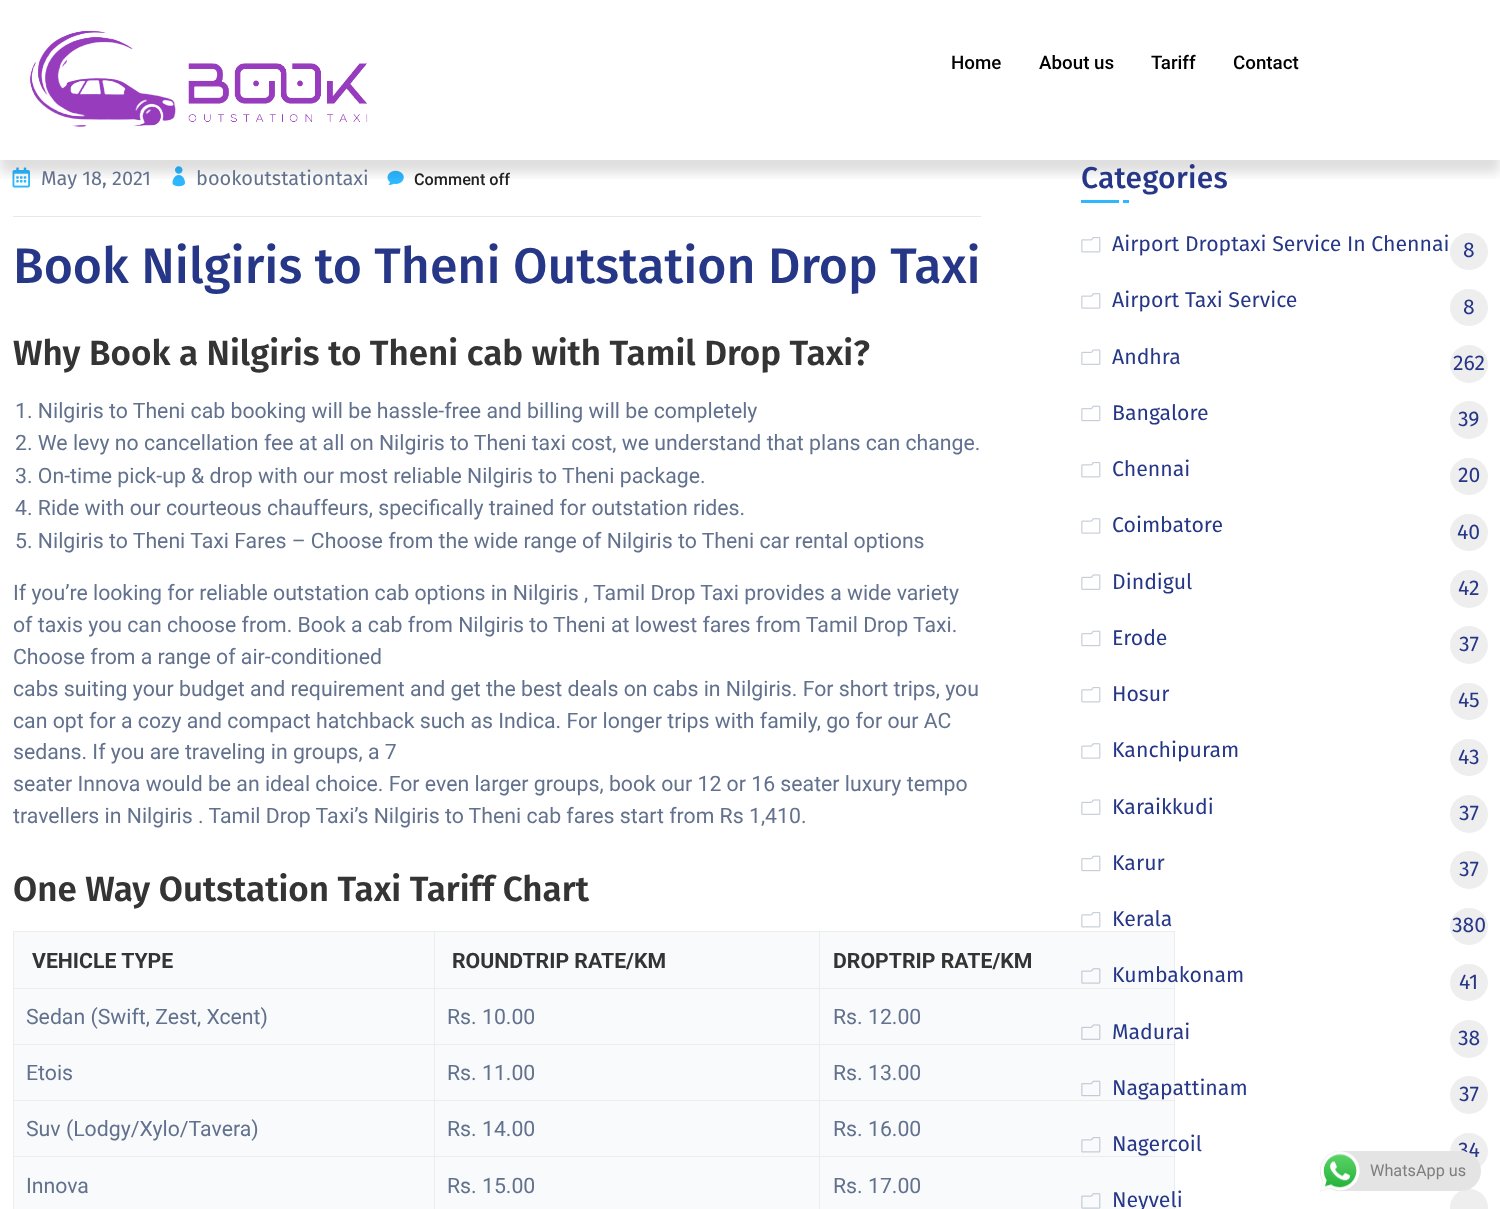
<!DOCTYPE html>
<meta charset="utf-8">
<style>body { margin: 0 } canvas { display: block }</style>
<canvas id="canvas" width="1500" height="1209"></canvas>
<script type="module">
  const canvas = document.getElementById("canvas");
  const g = canvas.getContext("2d");
  g.miterLimit = 4;
  g.fontKerning = "normal";
  function drawText(s, x, y, [font, color]) {
    g.font = font;
    g.fillStyle = color;
    g.fillText(s, x, y);
  }
  function fillBox(x, y, w, h, color) {
    g.fillStyle = color;
    g.fillRect(x, y, w, h);
  }
  function fillRounded(x, y, w, h, r, color) {
    g.fillStyle = color;
    g.beginPath();
    g.roundRect(x, y, w, h, r);
    g.fill();
  }
  async function drawPicture(src, x, y, w, h) {
    const img = new Image();
    img.src = src;
    await img.decode();
    g.drawImage(img, x, y, w, h);
  }

  const s1 = ["500 18.75px Roboto", "#000000"];
  const s2 = ["20px Fira Sans", "#62718D"];
  const s3 = ["500 16.25px Roboto", "#222222"];
  const s4 = ["500 50px Fira Sans", "#263787"];
  const s5 = ["600 35px Fira Sans", "#343434"];
  const s6 = ["21.25px Roboto", "#62718D"];
  const s7 = ["bold 21.25px Roboto", "#343434"];
  const s8 = ["500 30px Fira Sans", "#263787"];
  const s9 = ["21.25px Fira Sans", "#263787"];
  const s10 = ["16.25px Roboto", "#7F7D7D"];

  fillBox(0, 0, 1500, 1209, "#FFFFFF");
  await drawPicture("pic2.png", 12, 167, 18, 21);
  await drawPicture("pic3.png", 172, 166, 13, 21);
  await drawPicture("pic4.png", 387, 170, 17, 15);
  g.save();
  g.beginPath();
  g.rect(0, 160, 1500, 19);
  g.clip();
  g.fillStyle = "rgba(0, 0, 0, 0.13)";
  g.filter = "blur(6px)";
  g.beginPath();
  g.rect(0, 13, 1500, 160);
  g.fill();
  g.filter = "none";
  g.restore();
  await drawPicture("pic1.png", 30, 30, 338, 97);
  drawText("Home", 951, 69, s1);
  drawText("About us", 1039, 69, s1);
  drawText("Tariff", 1151, 69, s1);
  drawText("Contact", 1233, 69, s1);
  fillBox(13, 216, 968, 1, "#E8E8E8");
  drawText("May 18, 2021", 41, 185, s2);
  drawText("bookoutstationtaxi", 196, 185, s2);
  drawText("Comment off", 414, 185, s3);
  drawText("Book Nilgiris to Theni Outstation Drop Taxi", 13, 283, s4);
  drawText("Why Book a Nilgiris to Theni cab with Tamil Drop Taxi?", 13, 365, s5);
  drawText("1. Nilgiris to Theni cab booking will be hassle-free and billing will be completely", 15, 418, s6);
  drawText("2. We levy no cancellation fee at all on Nilgiris to Theni taxi cost, we understand that plans can change.", 15, 450, s6);
  drawText("3. On-time pick-up & drop with our most reliable Nilgiris to Theni package.", 15, 483, s6);
  drawText("4. Ride with our courteous chauffeurs, specifically trained for outstation rides.", 15, 515, s6);
  drawText("5. Nilgiris to Theni Taxi Fares – Choose from the wide range of Nilgiris to Theni car rental options", 15, 548, s6);
  drawText("If you’re looking for reliable outstation cab options in Nilgiris , Tamil Drop Taxi provides a wide variety", 13, 600, s6);
  drawText("of taxis you can choose from. Book a cab from Nilgiris to Theni at lowest fares from Tamil Drop Taxi.", 13, 632, s6);
  drawText("Choose from a range of air-conditioned", 13, 664, s6);
  drawText("cabs suiting your budget and requirement and get the best deals on cabs in Nilgiris. For short trips, you", 13, 696, s6);
  drawText("can opt for a cozy and compact hatchback such as Indica. For longer trips with family, go for our AC", 13, 728, s6);
  drawText("sedans. If you are traveling in groups, a 7", 13, 759, s6);
  drawText("seater Innova would be an ideal choice. For even larger groups, book our 12 or 16 seater luxury tempo", 13, 791, s6);
  drawText("travellers in Nilgiris . Tamil Drop Taxi’s Nilgiris to Theni cab fares start from Rs 1,410.", 13, 823, s6);
  drawText("One Way Outstation Taxi Tariff Chart", 13, 901, s5);
  fillBox(14, 932, 1160, 277, "#F9FAFC");
  fillBox(13, 931, 1162, 1, "#EDEDED");
  fillBox(1174, 931, 1, 278, "#EDEDED");
  fillBox(13, 931, 1, 278, "#EDEDED");
  drawText("VEHICLE TYPE", 32, 968, s7);
  drawText("ROUNDTRIP RATE/KM", 452, 968, s7);
  drawText("DROPTRIP RATE/KM", 833, 968, s7);
  fillBox(13, 988, 1162, 1, "#EDEDED");
  drawText("Sedan (Swift, Zest, Xcent)", 26, 1024, s6);
  drawText("Rs. 10.00", 447, 1024, s6);
  drawText("Rs. 12.00", 833, 1024, s6);
  fillBox(13, 1044, 1162, 1, "#EDEDED");
  drawText("Etois", 26, 1080, s6);
  drawText("Rs. 11.00", 447, 1080, s6);
  drawText("Rs. 13.00", 833, 1080, s6);
  fillBox(13, 1100, 1162, 1, "#EDEDED");
  drawText("Suv (Lodgy/Xylo/Tavera)", 26, 1136, s6);
  drawText("Rs. 14.00", 447, 1136, s6);
  drawText("Rs. 16.00", 833, 1136, s6);
  fillBox(13, 1156, 1162, 1, "#EDEDED");
  drawText("Innova", 26, 1193, s6);
  fillBox(434, 931, 1, 278, "#EDEDED");
  drawText("Rs. 15.00", 447, 1193, s6);
  fillBox(819, 931, 1, 278, "#EDEDED");
  drawText("Rs. 17.00", 833, 1193, s6);
  g.letterSpacing = "0.25px";
  drawText("Categories", 1081, 188, s8);
  fillBox(1081, 200, 48, 3, "#2DB7FF");
  fillBox(1119, 200, 4, 3, "#FFFFFF");
  await drawPicture("pic5.png", 1081, 237, 20, 16);
  g.letterSpacing = "0px";
  drawText("Airport Droptaxi Service In Chennai", 1112, 251, s9);
  fillRounded(1450, 233, 38, 37, 18.5, "#EEEEEE");
  drawText("8", 1463, 257, s9);
  await drawPicture("pic6.png", 1081, 293, 20, 16);
  drawText("Airport Taxi Service", 1112, 307, s9);
  fillRounded(1450, 289, 38, 37, 18.5, "#EEEEEE");
  drawText("8", 1463, 314, s9);
  await drawPicture("pic7.png", 1081, 349, 20, 16);
  drawText("Andhra", 1112, 364, s9);
  g.fillStyle = "#EEEEEE";
  g.beginPath();
  g.arc(1469, 364, 19, 0, Math.PI * 2);
  g.fill();
  drawText("262", 1453, 370, s9);
  await drawPicture("pic8.png", 1081, 405, 20, 17);
  drawText("Bangalore", 1112, 420, s9);
  g.fillStyle = "#EEEEEE";
  g.beginPath();
  g.arc(1469, 420, 19, 0, Math.PI * 2);
  g.fill();
  drawText("39", 1458, 426, s9);
  await drawPicture("pic5.png", 1081, 462, 20, 16);
  drawText("Chennai", 1112, 476, s9);
  fillRounded(1450, 458, 38, 37, 18.5, "#EEEEEE");
  drawText("20", 1458, 482, s9);
  await drawPicture("pic6.png", 1081, 518, 20, 16);
  drawText("Coimbatore", 1112, 532, s9);
  fillRounded(1450, 514, 38, 37, 18.5, "#EEEEEE");
  drawText("40", 1457, 539, s9);
  await drawPicture("pic7.png", 1081, 574, 20, 16);
  drawText("Dindigul", 1112, 589, s9);
  g.fillStyle = "#EEEEEE";
  g.beginPath();
  g.arc(1469, 589, 19, 0, Math.PI * 2);
  g.fill();
  drawText("42", 1458, 595, s9);
  await drawPicture("pic8.png", 1081, 630, 20, 17);
  drawText("Erode", 1112, 645, s9);
  g.fillStyle = "#EEEEEE";
  g.beginPath();
  g.arc(1469, 645, 19, 0, Math.PI * 2);
  g.fill();
  drawText("37", 1459, 651, s9);
  await drawPicture("pic5.png", 1081, 687, 20, 16);
  drawText("Hosur", 1112, 701, s9);
  fillRounded(1450, 683, 38, 37, 18.5, "#EEEEEE");
  drawText("45", 1458, 707, s9);
  await drawPicture("pic6.png", 1081, 743, 20, 16);
  drawText("Kanchipuram", 1112, 757, s9);
  fillRounded(1450, 739, 38, 37, 18.5, "#EEEEEE");
  drawText("43", 1458, 764, s9);
  await drawPicture("pic7.png", 1081, 799, 20, 16);
  drawText("Karaikkudi", 1112, 814, s9);
  g.fillStyle = "#EEEEEE";
  g.beginPath();
  g.arc(1469, 814, 19, 0, Math.PI * 2);
  g.fill();
  drawText("37", 1459, 820, s9);
  await drawPicture("pic8.png", 1081, 855, 20, 17);
  drawText("Karur", 1112, 870, s9);
  g.fillStyle = "#EEEEEE";
  g.beginPath();
  g.arc(1469, 870, 19, 0, Math.PI * 2);
  g.fill();
  drawText("37", 1459, 876, s9);
  await drawPicture("pic5.png", 1081, 912, 20, 16);
  drawText("Kerala", 1112, 926, s9);
  fillRounded(1450, 908, 38, 37, 18.5, "#EEEEEE");
  drawText("380", 1452, 932, s9);
  await drawPicture("pic9.png", 1081, 968, 20, 16);
  drawText("Kumbakonam", 1112, 982, s9);
  fillRounded(1450, 964, 38, 37, 18.5, "#EEEEEE");
  drawText("41", 1459, 989, s9);
  await drawPicture("pic10.png", 1081, 1024, 20, 16);
  drawText("Madurai", 1112, 1039, s9);
  g.fillStyle = "#EEEEEE";
  g.beginPath();
  g.arc(1469, 1039, 19, 0, Math.PI * 2);
  g.fill();
  drawText("38", 1458, 1045, s9);
  await drawPicture("pic11.png", 1081, 1080, 20, 17);
  drawText("Nagapattinam", 1112, 1095, s9);
  g.fillStyle = "#EEEEEE";
  g.beginPath();
  g.arc(1469, 1095, 19, 0, Math.PI * 2);
  g.fill();
  drawText("37", 1459, 1101, s9);
  await drawPicture("pic12.png", 1081, 1137, 20, 16);
  drawText("Nagercoil", 1112, 1151, s9);
  fillRounded(1450, 1133, 38, 37, 18.5, "#EEEEEE");
  drawText("34", 1458, 1157, s9);
  await drawPicture("pic9.png", 1081, 1193, 20, 16);
  drawText("Neyveli", 1112, 1207, s9);
  fillRounded(1450, 1189, 38, 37, 18.5, "#EEEEEE");
  fillRounded(1320, 1151, 161, 40, 20, "#E4E4E4");
  await drawPicture("pic13.png", 1320, 1151, 40, 41);
  drawText("WhatsApp us", 1370, 1176, s10);
</script>
